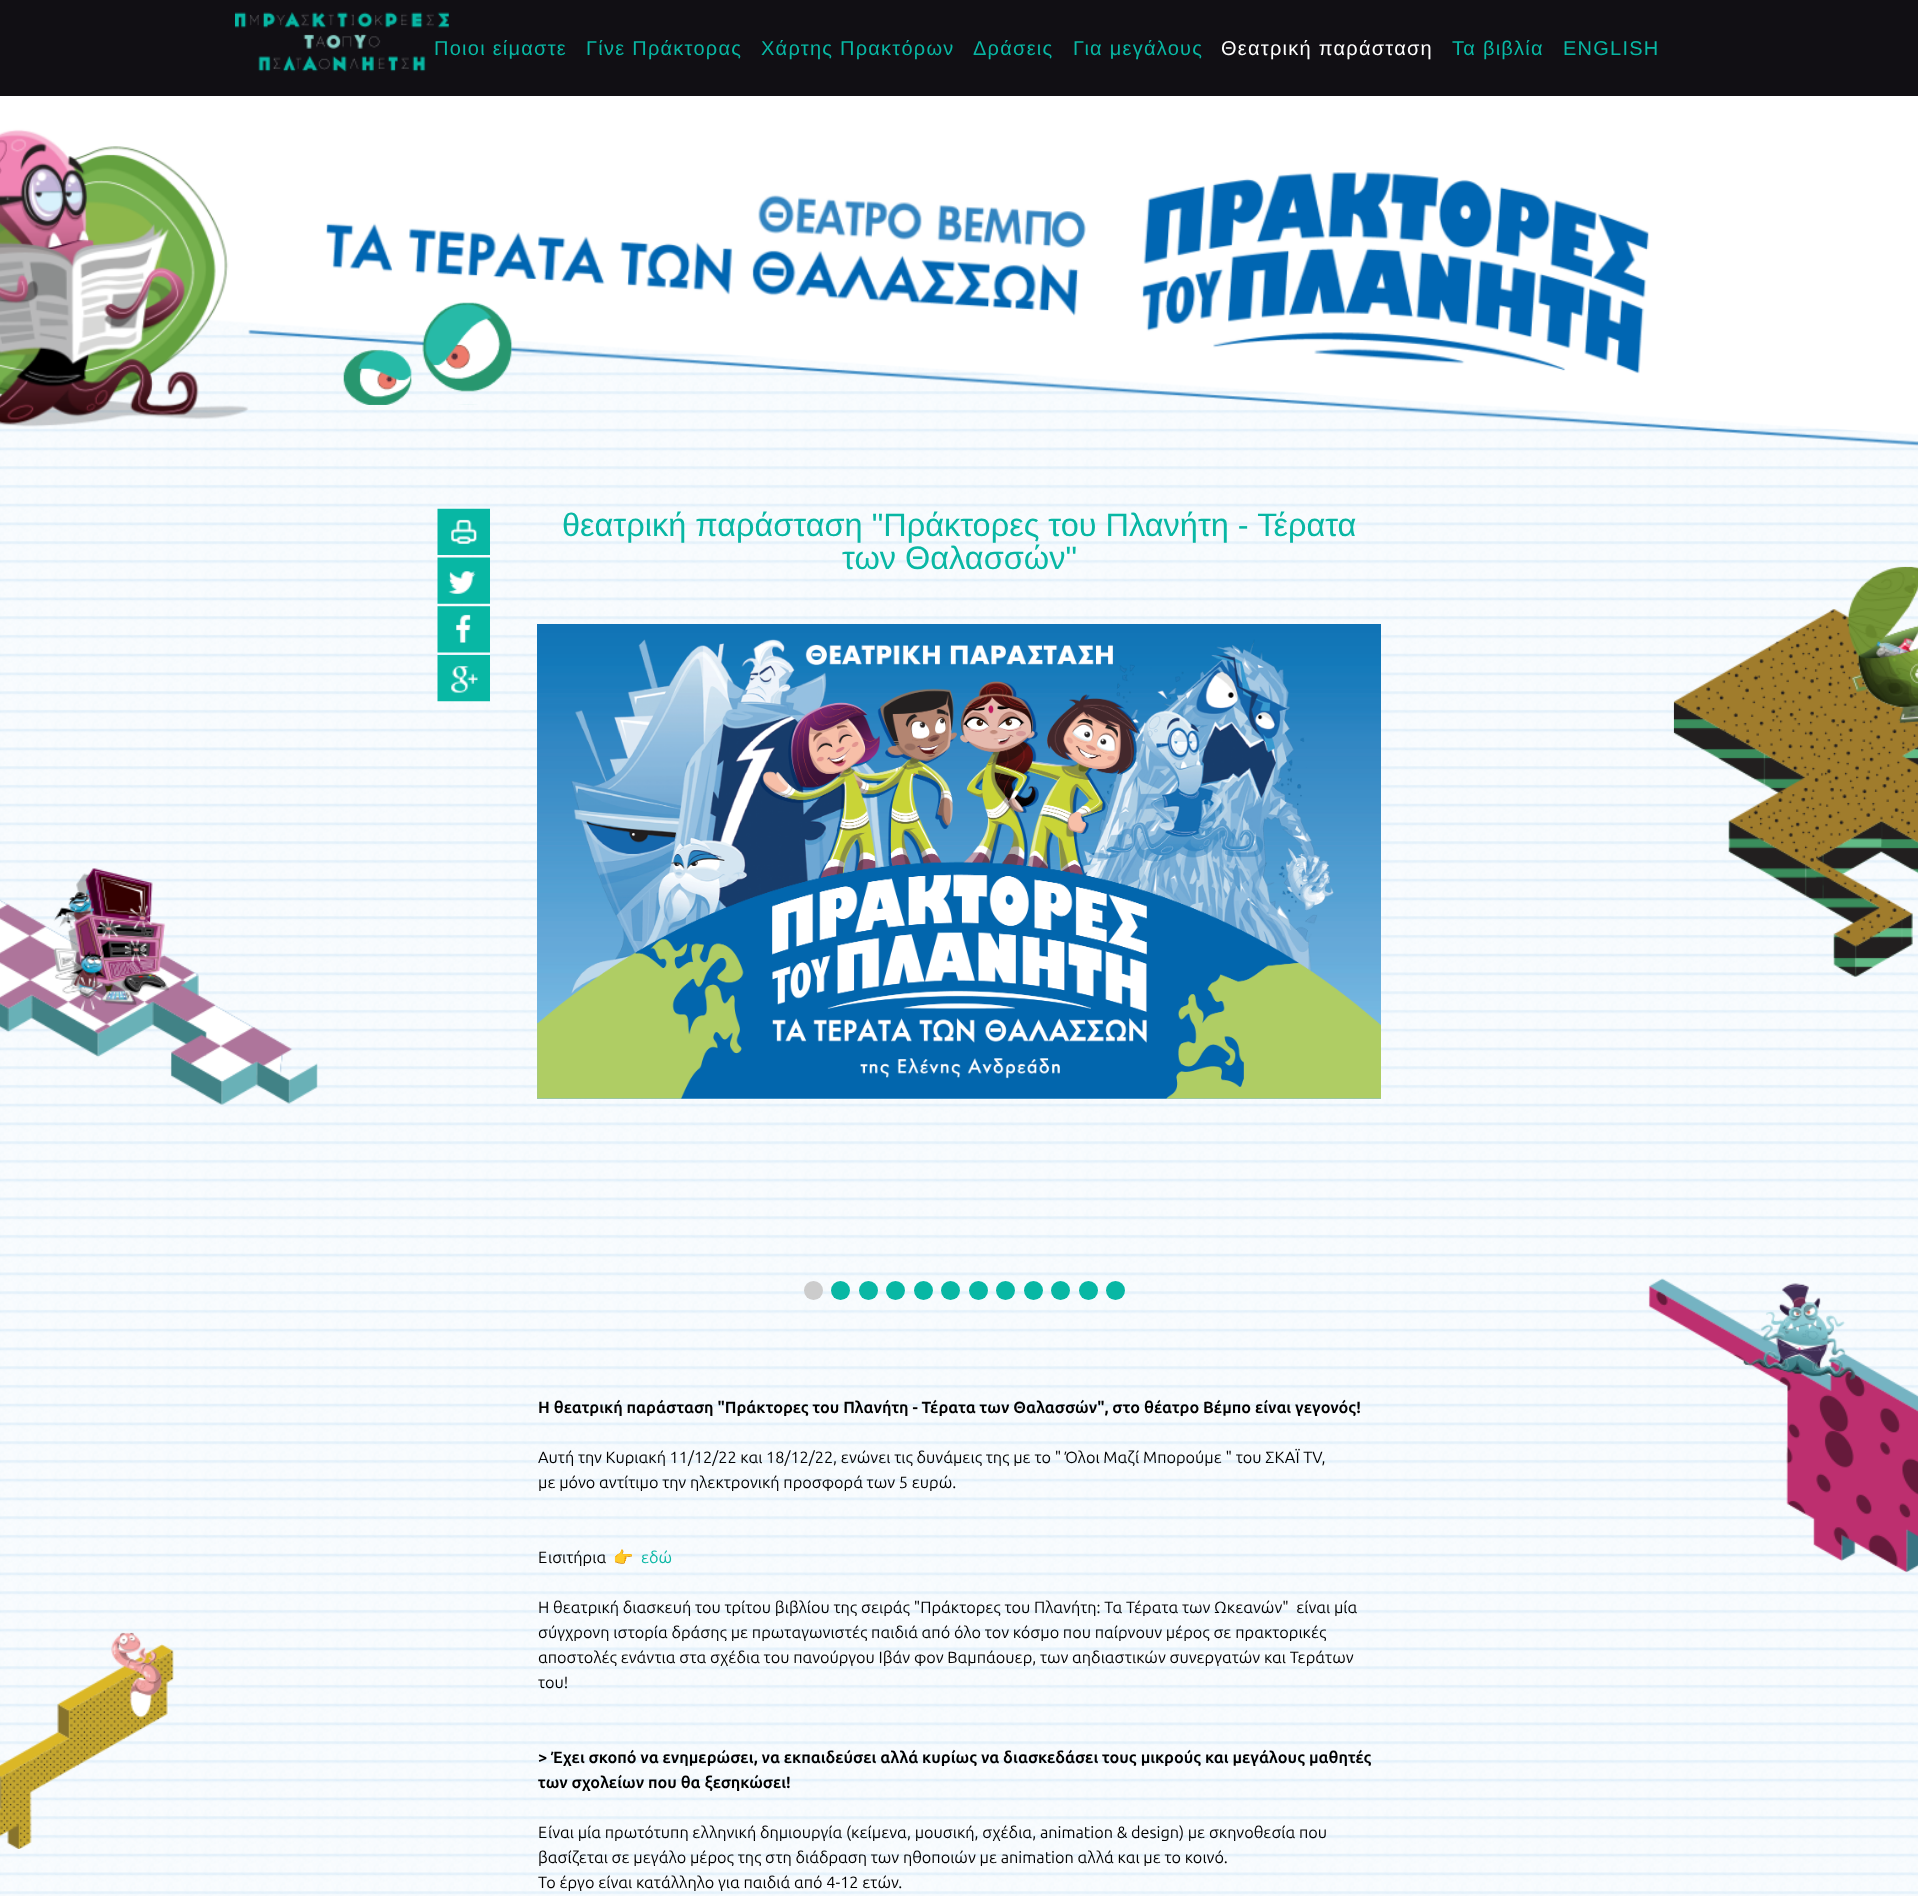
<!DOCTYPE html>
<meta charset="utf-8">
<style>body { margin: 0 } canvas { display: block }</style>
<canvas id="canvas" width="1918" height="1896"></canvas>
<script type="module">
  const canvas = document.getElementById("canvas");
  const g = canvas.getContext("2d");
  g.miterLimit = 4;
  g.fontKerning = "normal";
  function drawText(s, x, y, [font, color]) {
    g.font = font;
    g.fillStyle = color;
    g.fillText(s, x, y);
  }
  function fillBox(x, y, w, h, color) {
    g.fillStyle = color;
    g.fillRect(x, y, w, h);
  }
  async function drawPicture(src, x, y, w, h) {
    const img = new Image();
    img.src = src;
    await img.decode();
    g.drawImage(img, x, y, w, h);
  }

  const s1 = ["20px Liberation Sans", "#08B7A4"];
  const s2 = ["20px Liberation Sans", "#FFFFFF"];
  const s3 = ["32.5px Liberation Sans", "#08B7A4"];
  const s4 = ["bold 16.25px Ubuntu", "#000000"];
  const s5 = ["16.25px Ubuntu", "#000000"];
  const s6 = ["16.25px Noto Color Emoji", "#000000"];
  const s7 = ["16.25px Ubuntu", "#08B7A4"];

  fillBox(0, 0, 1918, 1896, "#FFFFFF");
  await drawPicture("pic1.png", 0, 96, 1918, 1800);
  await drawPicture("pic2.png", 0, 96, 1918, 351);
  fillBox(0, 0, 1918, 96, "#110F14");
  await drawPicture("pic3.png", 235, 12, 214, 60);
  g.letterSpacing = "1.25px";
  drawText("Ποιοι είμαστε", 434, 55, s1);
  drawText("Γίνε Πράκτορας", 586, 55, s1);
  drawText("Χάρτης Πρακτόρων", 761, 55, s1);
  drawText("Δράσεις", 973, 55, s1);
  drawText("Για μεγάλους", 1073, 55, s1);
  drawText("Θεατρική παράσταση", 1221, 55, s2);
  drawText("Τα βιβλία", 1452, 55, s1);
  drawText("ENGLISH", 1563, 55, s1);
  await drawPicture("pic4.png", 343, 302, 170, 103);
  await drawPicture("pic5.png", 437, 508, 53, 47);
  await drawPicture("pic6.png", 437, 557, 53, 47);
  await drawPicture("pic7.png", 437, 606, 53, 47);
  await drawPicture("pic8.png", 437, 655, 53, 47);
  g.letterSpacing = "0px";
  drawText("θεατρική παράσταση \"Πράκτορες του Πλανήτη - Τέρατα", 562, 536, s3);
  drawText("των Θαλασσών\"", 842, 569, s3);
  await drawPicture("pic9.png", 537, 624, 844, 475);
  g.fillStyle = "#CCCCCC";
  g.beginPath();
  g.arc(813.5, 1290.5, 9.5, 0, Math.PI * 2);
  g.fill();
  g.fillStyle = "#08B7A4";
  g.beginPath();
  g.arc(840.5, 1290.5, 9.5, 0, Math.PI * 2);
  g.fill();
  g.beginPath();
  g.arc(868.5, 1290.5, 9.5, 0, Math.PI * 2);
  g.fill();
  g.beginPath();
  g.arc(895.5, 1290.5, 9.5, 0, Math.PI * 2);
  g.fill();
  g.beginPath();
  g.arc(923.5, 1290.5, 9.5, 0, Math.PI * 2);
  g.fill();
  g.beginPath();
  g.arc(950.5, 1290.5, 9.5, 0, Math.PI * 2);
  g.fill();
  g.beginPath();
  g.arc(978.5, 1290.5, 9.5, 0, Math.PI * 2);
  g.fill();
  g.beginPath();
  g.arc(1005.5, 1290.5, 9.5, 0, Math.PI * 2);
  g.fill();
  g.beginPath();
  g.arc(1033.5, 1290.5, 9.5, 0, Math.PI * 2);
  g.fill();
  g.beginPath();
  g.arc(1060.5, 1290.5, 9.5, 0, Math.PI * 2);
  g.fill();
  g.beginPath();
  g.arc(1088.5, 1290.5, 9.5, 0, Math.PI * 2);
  g.fill();
  g.beginPath();
  g.arc(1115.5, 1290.5, 9.5, 0, Math.PI * 2);
  g.fill();
  drawText("Η θεατρική παράσταση \"Πράκτορες του Πλανήτη - Τέρατα των Θαλασσών\", στο θέατρο Βέμπο είναι γεγονός!", 538, 1413, s4);
  drawText("Aυτή την Κυριακή 11/12/22 και 18/12/22, ενώνει τις δυνάμεις της με το \" Όλοι Μαζί Μπορούμε \" του ΣΚΑΪ ΤV,", 538, 1463, s5);
  drawText("με μόνο αντίτιμο την ηλεκτρονική προσφορά των 5 ευρώ.", 538, 1488, s5);
  drawText("Εισιτήρια", 538, 1563, s5);
  drawText("👉", 613, 1563, s6);
  drawText("εδώ", 641, 1563, s7);
  drawText("Η θεατρική διασκευή του τρίτου βιβλίου της σειράς \"Πράκτορες του Πλανήτη: Τα Τέρατα των Ωκεανών\"  είναι μία", 538, 1613, s5);
  drawText("σύγχρονη ιστορία δράσης με πρωταγωνιστές παιδιά από όλο τον κόσμο που παίρνουν μέρος σε πρακτορικές", 538, 1638, s5);
  drawText("αποστολές ενάντια στα σχέδια του πανούργου Ιβάν φον Βαμπάουερ, των αηδιαστικών συνεργατών και Τεράτων", 538, 1663, s5);
  drawText("του!", 538, 1688, s5);
  drawText("> Έχει σκοπό να ενημερώσει, να εκπαιδεύσει αλλά κυρίως να διασκεδάσει τους μικρούς και μεγάλους μαθητές", 538, 1763, s4);
  drawText("των σχολείων που θα ξεσηκώσει!", 538, 1788, s4);
  drawText("Είναι μία πρωτότυπη ελληνική δημιουργία (κείμενα, μουσική, σχέδια, animation & design) με σκηνοθεσία που", 538, 1838, s5);
  drawText("βασίζεται σε μεγάλο μέρος της στη διάδραση των ηθοποιών με animation αλλά και με το κοινό.", 538, 1863, s5);
  drawText("Το έργο είναι κατάλληλο για παιδιά από 4-12 ετών.", 538, 1888, s5);
  await drawPicture("pic10.png", 0, 868, 318, 237);
  await drawPicture("pic11.png", 1673, 566, 245, 411);
  await drawPicture("pic12.png", 1648, 1278, 270, 295);
  await drawPicture("pic13.png", 0, 1632, 174, 217);
</script>
